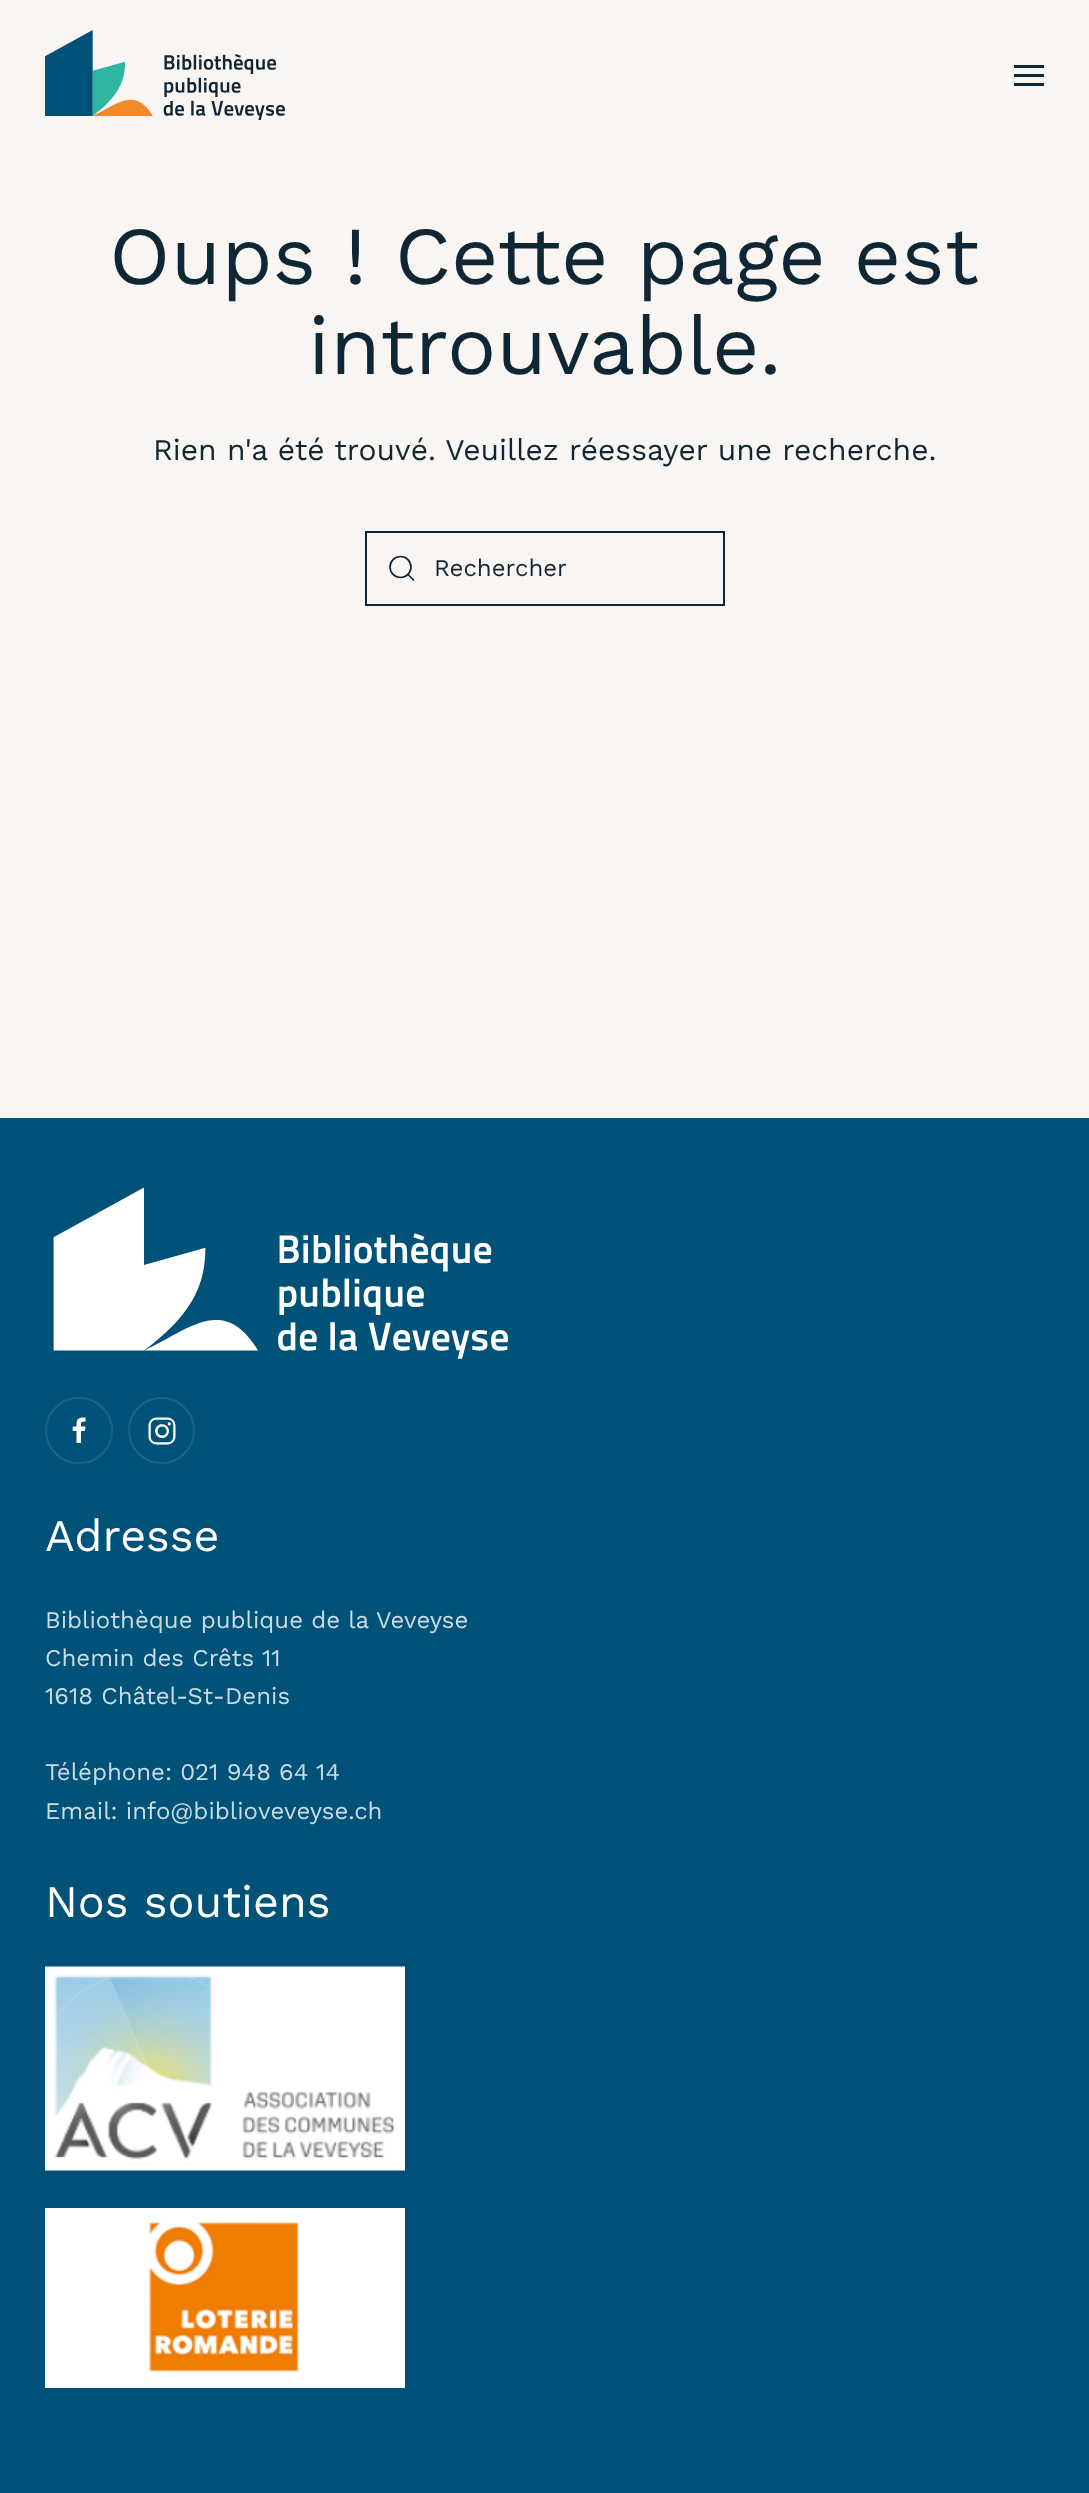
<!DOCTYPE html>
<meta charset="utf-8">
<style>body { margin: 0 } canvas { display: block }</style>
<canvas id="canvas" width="1089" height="2493"></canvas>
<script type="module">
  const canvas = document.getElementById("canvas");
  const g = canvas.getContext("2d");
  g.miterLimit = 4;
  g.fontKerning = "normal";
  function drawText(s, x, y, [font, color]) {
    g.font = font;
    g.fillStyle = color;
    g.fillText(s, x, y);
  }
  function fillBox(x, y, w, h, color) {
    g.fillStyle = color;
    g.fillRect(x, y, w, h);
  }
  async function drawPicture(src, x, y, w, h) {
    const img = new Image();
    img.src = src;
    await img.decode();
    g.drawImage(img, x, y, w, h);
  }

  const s1 = ["82.25px Work Sans", "#0F2634"];
  const s2 = ["30px Work Sans", "#0F2634"];
  const s3 = ["24px Work Sans", "#0F2634"];
  const s4 = ["45px Work Sans", "#FFFFFF"];
  const s5 = ["24px Work Sans", "#CCDCE4"];

  fillBox(0, 0, 1089, 2493, "#F9F5F3");
  await drawPicture("pic1.png", 45, 30, 240, 90);
  fillBox(1014, 65, 30, 3, "#0F2634");
  fillBox(1014, 74, 30, 3, "#0F2634");
  fillBox(1014, 83, 30, 3, "#0F2634");
  drawText("Oups ! Cette page est", 109, 284, s1);
  drawText("introuvable.", 308, 374, s1);
  drawText("Rien n'a été trouvé. Veuillez réessayer une recherche.", 153, 460, s2);
  g.strokeStyle = "#0F2634";
  g.lineWidth = 2;
  g.strokeRect(366, 532, 358, 73);
  g.beginPath();
  g.arc(400.5, 567, 10.5, 0, Math.PI * 2);
  g.lineWidth = 1.7;
  g.stroke();
  g.beginPath();
  g.moveTo(408, 574.5);
  g.lineTo(414, 580.5);
  g.closePath();
  g.stroke();
  drawText("Rechercher", 434, 576, s3);
  fillBox(0, 1118, 1089, 1375, "#005278");
  await drawPicture("pic2.png", 53, 1187, 455, 172);
  g.beginPath();
  g.roundRect(46, 1398, 66, 65, 32.5);
  g.strokeStyle = "#1A6386";
  g.lineWidth = 2;
  g.stroke();
  await drawPicture("pic3.png", 72, 1417, 14, 26);
  g.beginPath();
  g.arc(161.5, 1430.5, 32.5, 0, Math.PI * 2);
  g.stroke();
  await drawPicture("pic4.png", 148, 1417, 28, 28);
  drawText("Adresse", 45, 1551, s4);
  drawText("Bibliothèque publique de la Veveyse", 45, 1628, s5);
  drawText("Chemin des Crêts 11", 45, 1666, s5);
  drawText("1618 Châtel-St-Denis", 45, 1704, s5);
  drawText("Téléphone: 021 948 64 14", 45, 1780, s5);
  drawText("Email: info@biblioveveyse.ch", 45, 1819, s5);
  drawText("Nos soutiens", 45, 1917, s4);
  await drawPicture("pic5.png", 45, 1966, 360, 205);
  await drawPicture("pic6.png", 45, 2208, 360, 180);
</script>
